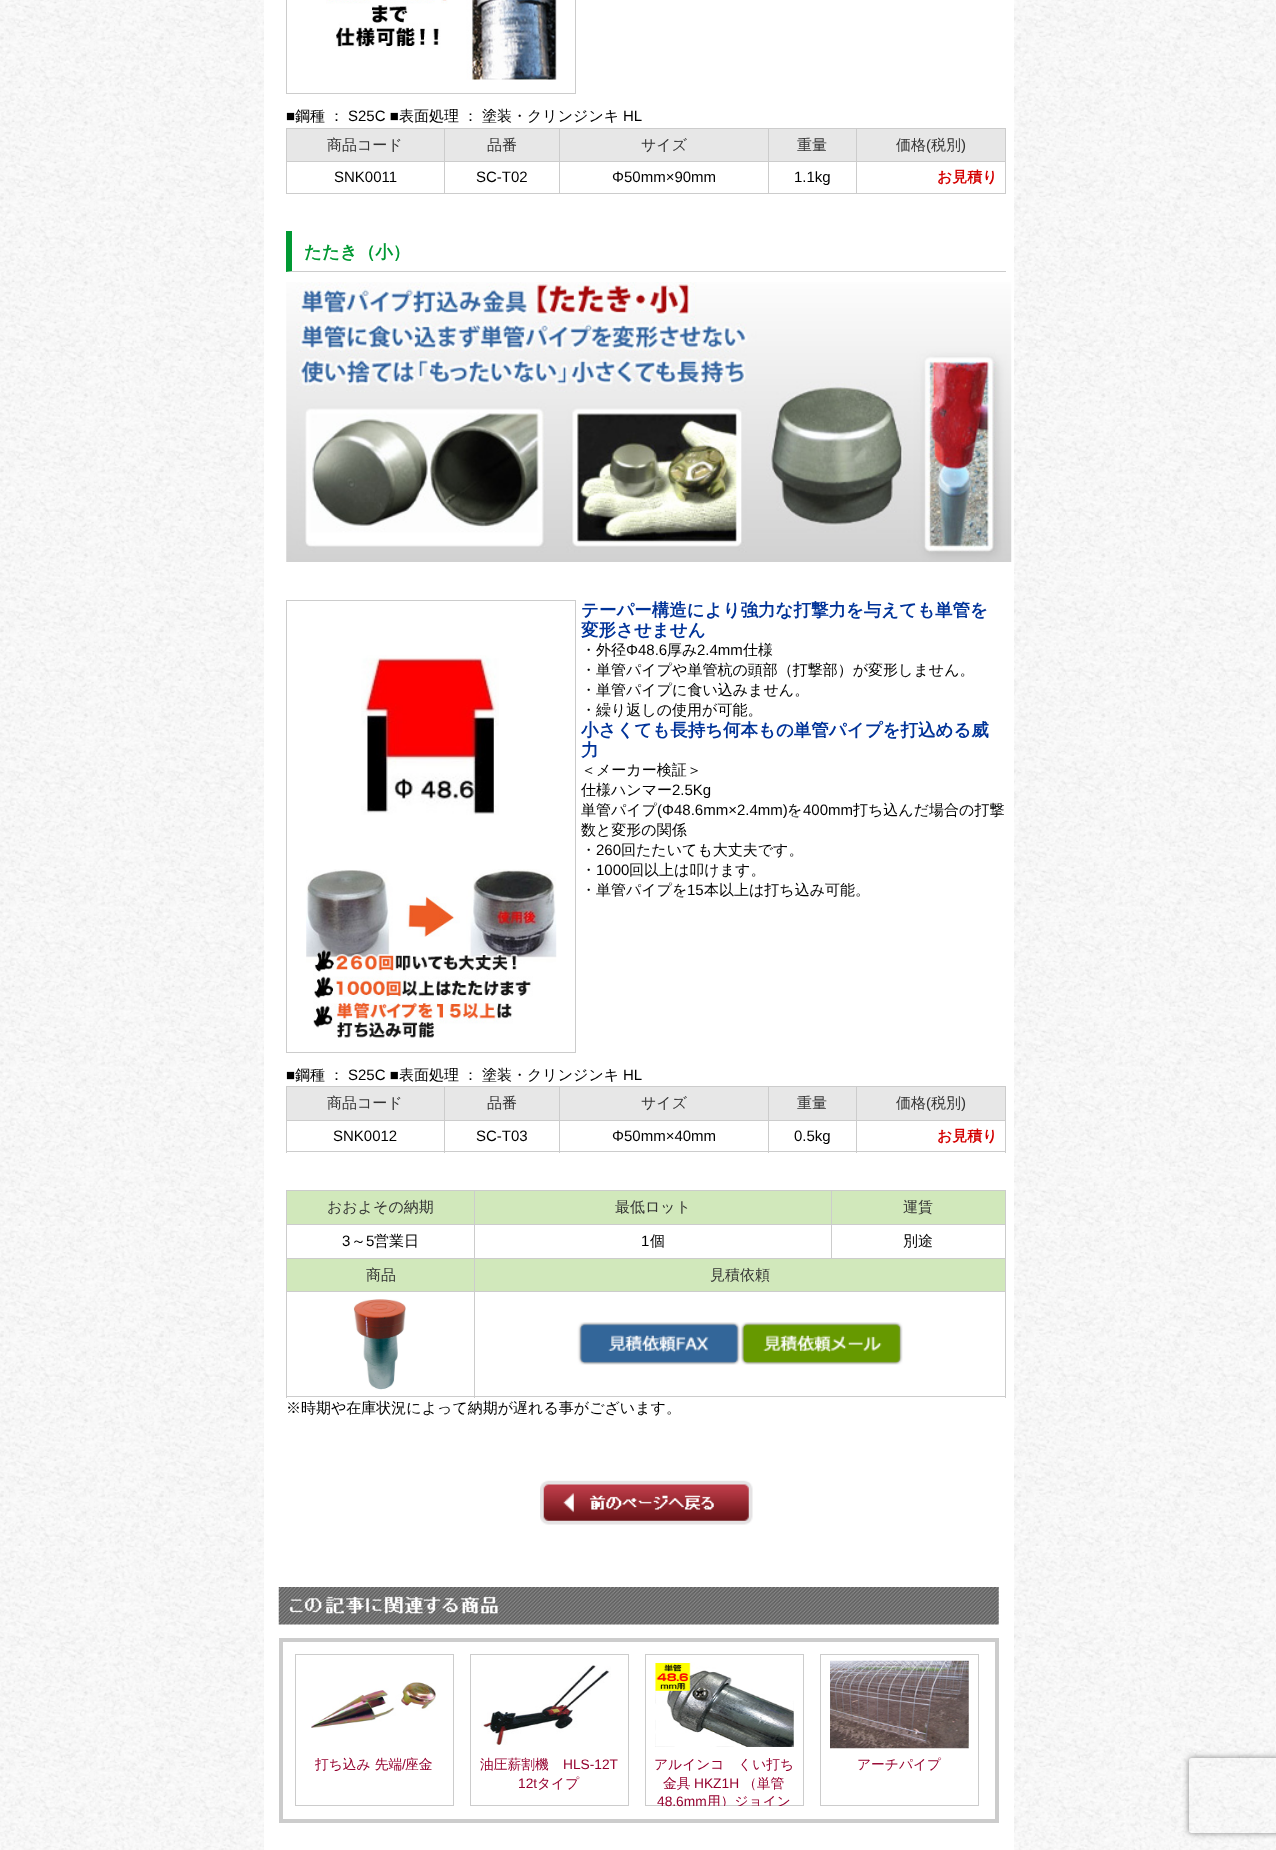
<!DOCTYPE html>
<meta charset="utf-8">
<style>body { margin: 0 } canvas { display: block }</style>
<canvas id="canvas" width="1276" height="1850"></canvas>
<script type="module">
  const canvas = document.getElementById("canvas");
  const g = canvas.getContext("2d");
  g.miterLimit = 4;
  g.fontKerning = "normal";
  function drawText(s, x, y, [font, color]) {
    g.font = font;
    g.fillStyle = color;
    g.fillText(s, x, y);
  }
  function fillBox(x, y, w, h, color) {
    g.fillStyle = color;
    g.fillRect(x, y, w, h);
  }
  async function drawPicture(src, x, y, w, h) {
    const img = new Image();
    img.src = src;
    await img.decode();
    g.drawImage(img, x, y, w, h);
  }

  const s1 = ["15px Liberation Sans", "#000000"];
  const s2 = ["500 15px WenQuanYi Zen Hei", "#000000"];
  const s3 = ["500 15px WenQuanYi Zen Hei", "#333333"];
  const s4 = ["15px Liberation Sans", "#333333"];
  const s5 = ["bold 15px WenQuanYi Zen Hei", "#D40000"];
  const s6 = ["bold 17.5px WenQuanYi Zen Hei", "#009933"];
  const s7 = ["bold 17.5px WenQuanYi Zen Hei", "#003399"];
  const s8 = ["500 13.75px WenQuanYi Zen Hei", "#95012E"];
  const s9 = ["13.75px Liberation Sans", "#95012E"];

  fillBox(0, 0, 1276, 1850, "#FFFFFF");
  await drawPicture("pic1.png", 0, 0, 1276, 1850);
  fillBox(264, 0, 750, 1850, "#FFFFFF");
  g.strokeStyle = "#CCCCCC";
  g.strokeRect(286.5, -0.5, 289, 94);
  await drawPicture("pic2.png", 326, 0, 231, 80);
  drawText("■", 286, 121, s1);
  drawText("鋼種", 295, 121, s2);
  drawText("：", 329, 121, s2);
  drawText("S25C ■", 348, 121, s1);
  drawText("表面処理", 399, 121, s2);
  drawText("：", 463, 121, s2);
  drawText("塗装・クリンジンキ", 482, 121, s2);
  drawText("HL", 623, 121, s1);
  fillBox(286, 128, 720, 1, "#CCCCCC");
  fillBox(1005, 128, 1, 66, "#CCCCCC");
  fillBox(286, 193, 720, 1, "#CCCCCC");
  fillBox(286, 128, 1, 66, "#CCCCCC");
  fillBox(287, 129, 157, 32, "#E7E7E7");
  fillBox(856, 161, 1, 33, "#CCCCCC");
  fillBox(856, 161, 150, 1, "#CCCCCC");
  fillBox(769, 129, 236, 32, "#E7E7E7");
  fillBox(856, 128, 1, 35, "#CCCCCC");
  fillBox(768, 161, 1, 33, "#CCCCCC");
  fillBox(768, 161, 90, 1, "#CCCCCC");
  fillBox(768, 128, 1, 35, "#CCCCCC");
  fillBox(559, 161, 1, 33, "#CCCCCC");
  fillBox(559, 161, 210, 1, "#CCCCCC");
  fillBox(559, 128, 1, 35, "#CCCCCC");
  fillBox(444, 161, 1, 33, "#CCCCCC");
  fillBox(444, 161, 116, 1, "#CCCCCC");
  fillBox(444, 128, 1, 35, "#CCCCCC");
  fillBox(286, 161, 159, 1, "#CCCCCC");
  drawText("商品コード", 327, 150, s3);
  fillBox(445, 129, 114, 32, "#E7E7E7");
  drawText("品番", 487, 150, s3);
  fillBox(560, 129, 208, 32, "#E7E7E7");
  drawText("サイズ", 641, 150, s3);
  drawText("重量", 797, 150, s3);
  drawText("価格", 896, 150, s3);
  drawText("(", 926, 150, s4);
  drawText("税別", 931, 150, s3);
  drawText(")", 961, 150, s4);
  drawText("SNK0011", 334, 182, s1);
  drawText("SC-T02", 476, 182, s1);
  drawText("Φ50mm×90mm", 612, 182, s1);
  drawText("1.1kg", 794, 182, s1);
  drawText("お見積り", 937, 182, s5);
  g.fillStyle = "#CCCCCC";
  g.beginPath();
  g.moveTo(1006, 272);
  g.lineTo(286, 272);
  g.lineTo(292, 271);
  g.lineTo(1006, 271);
  g.closePath();
  g.fill();
  g.fillStyle = "#009933";
  g.beginPath();
  g.moveTo(286, 272);
  g.lineTo(286, 231);
  g.lineTo(292, 231);
  g.lineTo(292, 271);
  g.closePath();
  g.fill();
  drawText("たたき（小）", 304, 258, s6);
  await drawPicture("pic3.png", 286, 282, 726, 280);
  g.strokeRect(286.5, 600.5, 289, 452);
  await drawPicture("pic4.png", 361, 655, 138, 160);
  await drawPicture("pic5.png", 306, 869, 251, 169);
  drawText("テーパー構造により強力な打撃力を与えても単管を", 581, 616, s7);
  drawText("変形させません", 581, 636, s7);
  drawText("・外径", 581, 655, s2);
  drawText("Φ48.6", 626, 655, s1);
  drawText("厚み", 667, 655, s2);
  drawText("2.4mm", 697, 655, s1);
  drawText("仕様", 743, 655, s2);
  drawText("・単管パイプや単管杭の頭部（打撃部）が変形しません。", 581, 675, s2);
  drawText("・単管パイプに食い込みません。", 581, 695, s2);
  drawText("・繰り返しの使用が可能。", 581, 715, s2);
  drawText("小さくても長持ち何本もの単管パイプを打込める威", 581, 736, s7);
  drawText("力", 581, 756, s7);
  drawText("＜メーカー検証＞", 581, 775, s2);
  drawText("仕様ハンマー", 581, 795, s2);
  drawText("2.5Kg", 672, 795, s1);
  drawText("単管パイプ", 581, 815, s2);
  drawText("(Φ48.6mm×2.4mm)", 657, 815, s1);
  drawText("を", 787, 815, s2);
  drawText("400mm", 803, 815, s1);
  drawText("打ち込んだ場合の打撃", 853, 815, s2);
  drawText("数と変形の関係", 581, 835, s2);
  drawText("・", 581, 855, s2);
  drawText("260", 596, 855, s1);
  drawText("回たたいても大丈夫です。", 621, 855, s2);
  drawText("・", 581, 875, s2);
  drawText("1000", 596, 875, s1);
  drawText("回以上は叩けます。", 629, 875, s2);
  drawText("・単管パイプを", 581, 895, s2);
  drawText("15", 687, 895, s1);
  drawText("本以上は打ち込み可能。", 704, 895, s2);
  drawText("■", 286, 1080, s1);
  drawText("鋼種", 295, 1080, s2);
  drawText("：", 329, 1080, s2);
  drawText("S25C ■", 348, 1080, s1);
  drawText("表面処理", 399, 1080, s2);
  drawText("：", 463, 1080, s2);
  drawText("塗装・クリンジンキ", 482, 1080, s2);
  drawText("HL", 623, 1080, s1);
  fillBox(286, 1086, 720, 1, "#CCCCCC");
  fillBox(1005, 1086, 1, 67, "#CCCCCC");
  fillBox(286, 1151, 720, 1, "#CCCCCC");
  fillBox(286, 1086, 1, 67, "#CCCCCC");
  fillBox(287, 1087, 157, 33, "#E7E7E7");
  fillBox(856, 1120, 1, 33, "#CCCCCC");
  fillBox(856, 1120, 150, 1, "#CCCCCC");
  fillBox(769, 1087, 236, 33, "#E7E7E7");
  fillBox(856, 1086, 1, 35, "#CCCCCC");
  fillBox(768, 1120, 1, 33, "#CCCCCC");
  fillBox(768, 1120, 90, 1, "#CCCCCC");
  fillBox(768, 1086, 1, 35, "#CCCCCC");
  fillBox(559, 1120, 1, 33, "#CCCCCC");
  fillBox(559, 1120, 210, 1, "#CCCCCC");
  fillBox(559, 1086, 1, 35, "#CCCCCC");
  fillBox(444, 1120, 1, 33, "#CCCCCC");
  fillBox(444, 1120, 116, 1, "#CCCCCC");
  fillBox(444, 1086, 1, 35, "#CCCCCC");
  fillBox(286, 1120, 159, 1, "#CCCCCC");
  drawText("商品コード", 327, 1108, s3);
  fillBox(445, 1087, 114, 33, "#E7E7E7");
  drawText("品番", 487, 1108, s3);
  fillBox(560, 1087, 208, 33, "#E7E7E7");
  drawText("サイズ", 641, 1108, s3);
  drawText("重量", 797, 1108, s3);
  drawText("価格", 896, 1108, s3);
  drawText("(", 926, 1108, s4);
  drawText("税別", 931, 1108, s3);
  drawText(")", 961, 1108, s4);
  drawText("SNK0012", 333, 1141, s1);
  drawText("SC-T03", 476, 1141, s1);
  drawText("Φ50mm×40mm", 612, 1141, s1);
  drawText("0.5kg", 794, 1141, s1);
  drawText("お見積り", 937, 1141, s5);
  fillBox(286, 1190, 720, 1, "#CCCCCC");
  fillBox(1005, 1190, 1, 208, "#CCCCCC");
  fillBox(286, 1396, 720, 1, "#CCCCCC");
  fillBox(286, 1190, 1, 208, "#CCCCCC");
  fillBox(287, 1191, 187, 33, "#D1E8BB");
  fillBox(474, 1258, 532, 1, "#CCCCCC");
  fillBox(831, 1224, 1, 35, "#CCCCCC");
  fillBox(831, 1224, 175, 1, "#CCCCCC");
  fillBox(831, 1190, 1, 35, "#CCCCCC");
  fillBox(474, 1291, 1, 107, "#CCCCCC");
  fillBox(474, 1291, 532, 1, "#CCCCCC");
  fillBox(474, 1258, 1, 35, "#CCCCCC");
  fillBox(286, 1258, 189, 1, "#CCCCCC");
  fillBox(474, 1224, 1, 35, "#CCCCCC");
  fillBox(474, 1224, 359, 1, "#CCCCCC");
  fillBox(474, 1190, 1, 35, "#CCCCCC");
  fillBox(286, 1224, 189, 1, "#CCCCCC");
  drawText("おおよその納期", 327, 1212, s3);
  fillBox(475, 1191, 356, 33, "#D1E8BB");
  drawText("最低ロット", 615, 1212, s3);
  fillBox(832, 1191, 173, 33, "#D1E8BB");
  drawText("運賃", 903, 1212, s3);
  drawText("3", 342, 1246, s1);
  drawText("～", 351, 1246, s2);
  drawText("5", 366, 1246, s1);
  drawText("営業日", 374, 1246, s2);
  drawText("1", 641, 1246, s1);
  drawText("個", 650, 1246, s2);
  drawText("別途", 903, 1246, s2);
  fillBox(287, 1259, 187, 32, "#D1E8BB");
  fillBox(286, 1291, 189, 1, "#CCCCCC");
  drawText("商品", 366, 1280, s3);
  fillBox(475, 1259, 530, 32, "#D1E8BB");
  drawText("見積依頼", 710, 1280, s3);
  await drawPicture("pic6.png", 353, 1299, 53, 91);
  await drawPicture("pic7.png", 577, 1322, 163, 43);
  await drawPicture("pic8.png", 740, 1322, 163, 43);
  drawText("※時期や在庫状況によって納期が遅れる事がございます。", 286, 1413, s2);
  await drawPicture("pic9.png", 540, 1480, 213, 45);
  await drawPicture("pic10.png", 278, 1587, 721, 38);
  g.lineWidth = 4;
  g.strokeRect(281, 1640, 716, 181);
  g.lineWidth = 1;
  g.strokeRect(295.5, 1654.5, 158, 151);
  await drawPicture("pic11.png", 311, 1682, 125, 46);
  drawText("打ち込み 先端", 315, 1769, s8);
  drawText("/", 402, 1769, s9);
  drawText("座金", 405, 1769, s8);
  g.strokeRect(470.5, 1654.5, 158, 151);
  await drawPicture("pic12.png", 481, 1665, 130, 80);
  drawText("油圧薪割機", 480, 1769, s8);
  drawText("HLS-12T", 563, 1769, s9);
  drawText("12t", 518, 1788, s9);
  drawText("タイプ", 537, 1788, s8);
  g.strokeRect(645.5, 1654.5, 158, 151);
  await drawPicture("pic13.png", 655, 1662, 139, 85);
  drawText("アルインコ　くい打ち", 654, 1769, s8);
  drawText("金具", 663, 1788, s8);
  drawText("HKZ1H", 694, 1788, s9);
  drawText("（単管", 743, 1788, s8);
  drawText("48.6mm", 657, 1806, s9);
  g.save();
  g.beginPath();
  g.rect(295, 1654, 700, 152);
  g.clip();
  drawText("用）ジョイン", 707, 1806, s8);
  g.restore();
  g.strokeRect(820.5, 1654.5, 158, 151);
  await drawPicture("pic14.png", 830, 1660, 139, 89);
  drawText("アーチパイプ", 857, 1769, s8);
  g.save();
  g.beginPath();
  g.moveTo(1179, 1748);
  g.lineTo(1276, 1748);
  g.lineTo(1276, 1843);
  g.lineTo(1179, 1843);
  g.closePath();
  g.moveTo(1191.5, 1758);
  g.lineTo(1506.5, 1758);
  g.bezierCurveTo(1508, 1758, 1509, 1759, 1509, 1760.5);
  g.lineTo(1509, 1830.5);
  g.bezierCurveTo(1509, 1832, 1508, 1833, 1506.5, 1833);
  g.lineTo(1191.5, 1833);
  g.bezierCurveTo(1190, 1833, 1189, 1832, 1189, 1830.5);
  g.lineTo(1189, 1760.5);
  g.bezierCurveTo(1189, 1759, 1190, 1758, 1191.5, 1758);
  g.closePath();
  g.clip("evenodd");
  g.fillStyle = "#808080";
  g.filter = "blur(3px)";
  g.beginPath();
  g.roundRect(1189, 1758, 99, 75, 2.5);
  g.fill();
  g.filter = "none";
  g.restore();
</script>
